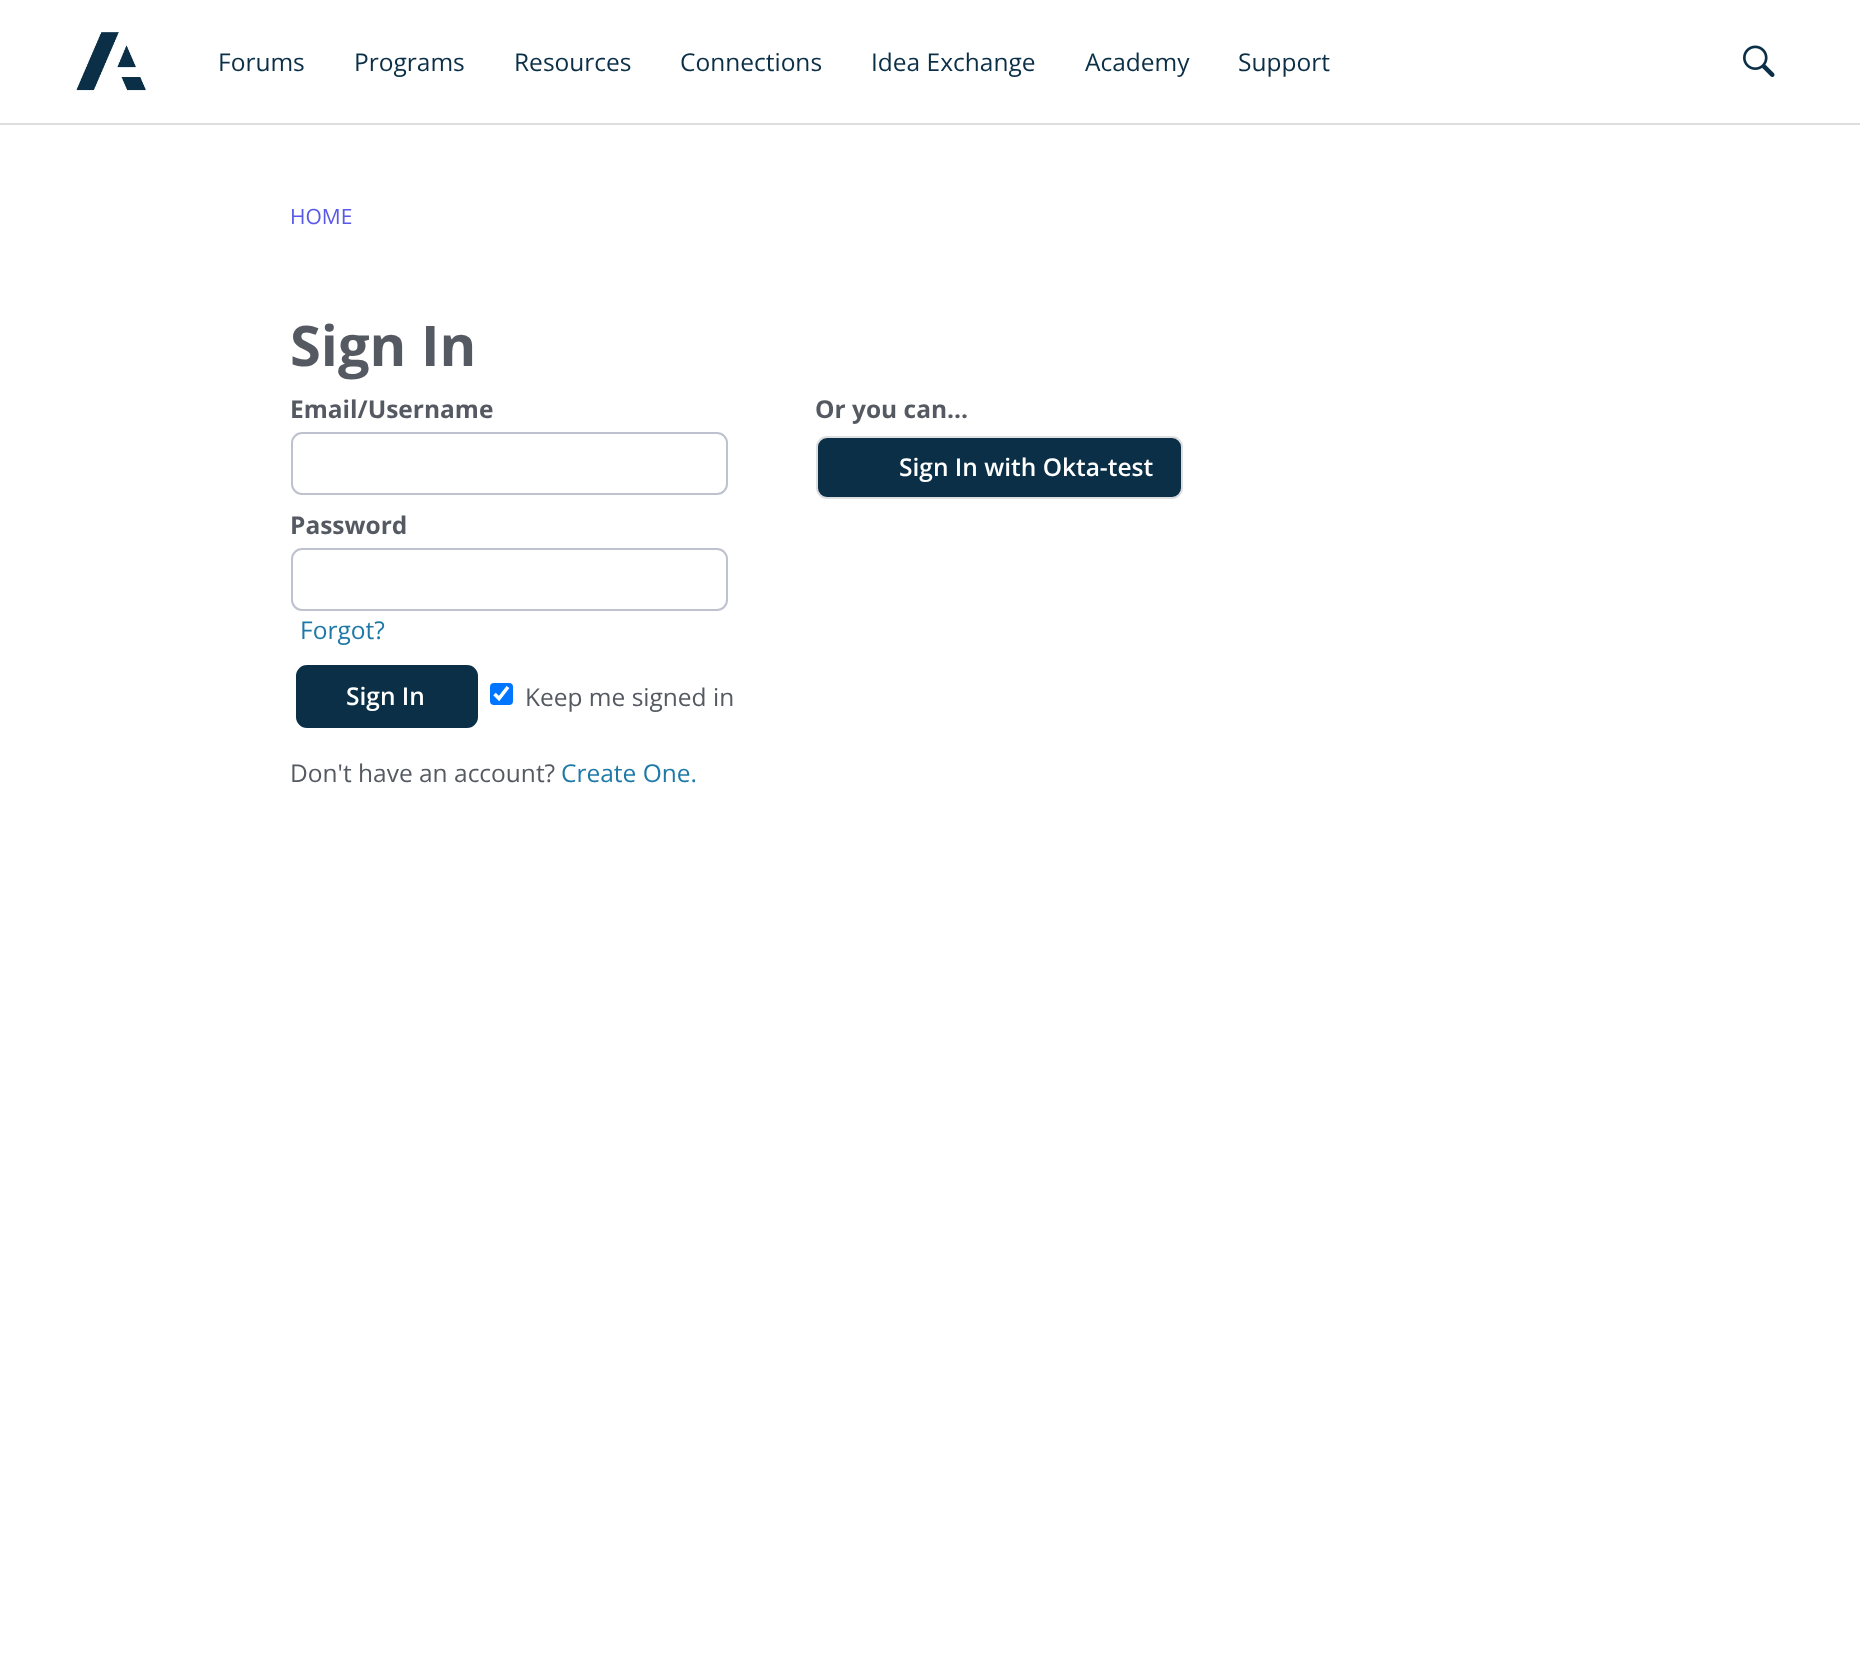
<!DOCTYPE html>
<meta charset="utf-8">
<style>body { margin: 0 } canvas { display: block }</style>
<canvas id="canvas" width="1860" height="1672"></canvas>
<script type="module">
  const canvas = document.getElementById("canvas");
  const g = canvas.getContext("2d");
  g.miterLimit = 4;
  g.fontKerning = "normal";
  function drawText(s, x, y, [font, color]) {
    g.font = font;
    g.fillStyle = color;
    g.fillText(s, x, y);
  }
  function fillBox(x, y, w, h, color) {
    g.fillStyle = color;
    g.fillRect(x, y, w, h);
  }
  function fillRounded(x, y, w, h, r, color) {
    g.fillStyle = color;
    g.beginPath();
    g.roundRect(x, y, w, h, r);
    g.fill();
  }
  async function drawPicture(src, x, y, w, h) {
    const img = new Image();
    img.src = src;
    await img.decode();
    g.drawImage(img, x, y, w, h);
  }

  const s1 = ["24.5px Open Sans", "#0A2F46"];
  const s2 = ["21px Open Sans", "#5858E9"];
  const s3 = ["bold 56px Open Sans", "#555A62"];
  const s4 = ["bold 24.5px Open Sans", "#555A62"];
  const s5 = ["24.5px Open Sans", "#1E79A7"];
  const s6 = ["600 24.5px Open Sans", "#FFFFFF"];
  const s7 = ["24.5px Open Sans", "#555A62"];

  fillBox(0, 0, 1860, 1672, "#FFFFFF");
  fillBox(0, 123, 1860, 2, "#DDDEE0");
  await drawPicture("pic1.png", 76, 32, 70, 59);
  drawText("Forums", 218, 71, s1);
  drawText("Programs", 354, 71, s1);
  drawText("Resources", 514, 71, s1);
  drawText("Connections", 680, 71, s1);
  drawText("Idea Exchange", 871, 71, s1);
  drawText("Academy", 1085, 71, s1);
  drawText("Support", 1238, 71, s1);
  await drawPicture("pic2.png", 1743, 45, 32, 32);
  drawText("HOME", 290, 224, s2);
  drawText("Sign In", 290, 366, s3);
  drawText("Email/Username", 290, 418, s4);
  g.beginPath();
  g.roundRect(292, 433, 435, 61, 10);
  g.strokeStyle = "#BEC2CE";
  g.lineWidth = 2;
  g.stroke();
  drawText("Password", 290, 534, s4);
  g.beginPath();
  g.roundRect(292, 549, 435, 61, 10);
  g.stroke();
  drawText("Forgot?", 300, 639, s5);
  drawText("Or you can...", 815, 418, s4);
  g.fillStyle = "#0A2F46";
  g.beginPath();
  g.roundRect(817, 437, 365, 61, 10);
  g.fill();
  g.strokeStyle = "#DDDEE0";
  g.stroke();
  drawText("Sign In with Okta-test", 899, 476, s6);
  g.fillStyle = "#0A2F46";
  g.beginPath();
  g.roundRect(297, 666, 180, 61, 10);
  g.fill();
  g.strokeStyle = "#0A2F46";
  g.stroke();
  drawText("Sign In", 346, 705, s6);
  fillRounded(490, 683, 23, 22, 4, "#0075FF");
  g.beginPath();
  g.moveTo(494.5, 694);
  g.lineTo(499, 698.5);
  g.lineTo(508, 687);
  g.strokeStyle = "#FFFFFF";
  g.lineWidth = 3.6;
  g.stroke();
  drawText("Keep me signed in", 525, 706, s7);
  drawText("Don't have an account?", 290, 782, s7);
  drawText("Create One.", 561, 782, s5);
</script>
